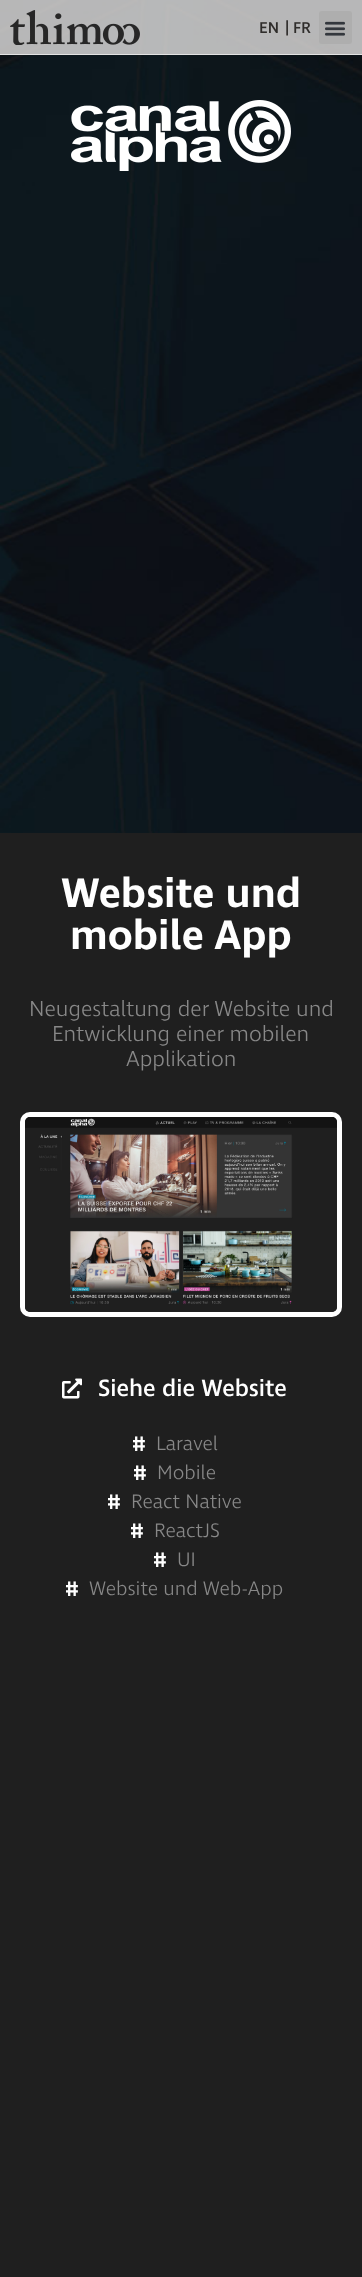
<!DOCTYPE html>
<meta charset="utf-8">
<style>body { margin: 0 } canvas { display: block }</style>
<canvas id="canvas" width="362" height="2277"></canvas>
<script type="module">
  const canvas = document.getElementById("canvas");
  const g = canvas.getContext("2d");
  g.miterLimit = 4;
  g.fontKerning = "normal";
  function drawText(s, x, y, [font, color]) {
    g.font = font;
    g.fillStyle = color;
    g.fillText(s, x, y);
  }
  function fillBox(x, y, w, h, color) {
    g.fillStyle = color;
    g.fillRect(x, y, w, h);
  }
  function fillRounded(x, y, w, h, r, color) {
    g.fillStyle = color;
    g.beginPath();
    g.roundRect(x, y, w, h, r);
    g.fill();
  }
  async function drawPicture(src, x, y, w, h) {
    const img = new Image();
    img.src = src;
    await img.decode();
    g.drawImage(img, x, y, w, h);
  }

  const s1 = ["500 16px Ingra", "#2F2D2B"];
  const s2 = ["600 42px Ingra", "#FFFFFF"];
  const s3 = ["300 22px Ingra", "#888888"];
  const s4 = ["500 24px Ingra", "#FFFFFF"];
  const s5 = ["500 25px Ingra", "#FFFFFF"];
  const s6 = ["300 20px Ingra", "#888888"];

  fillBox(0, 0, 362, 2277, "#FFFFFF");
  await drawPicture("pic5.png", 0, 0, 362, 833);
  fillBox(0, 0, 362, 54, "rgba(250, 247, 245, 0.72)");
  fillBox(0, 54, 362, 1, "#E3E3E3");
  await drawPicture("pic1.png", 10, 10, 130, 35);
  await drawPicture("pic2.png", 260, 22, 18, 11);
  drawText("|", 285, 33, s1);
  await drawPicture("pic3.png", 294, 22, 17, 11);
  fillRounded(319, 11, 33, 33, 3, "#AEAEAE");
  await drawPicture("pic4.png", 325, 21, 20, 15);
  await drawPicture("pic6.png", 71, 100, 220, 71);
  fillBox(0, 833, 362, 1444, "#1F1F1F");
  drawText("Website und", 61, 907, s2);
  drawText("mobile App", 70, 949, s2);
  drawText("Neugestaltung der Website und", 29, 1016, s3);
  drawText("Entwicklung einer mobilen", 52, 1041, s3);
  drawText("Applikation", 126, 1066, s3);
  g.beginPath();
  g.roundRect(22.5, 1114.5, 317, 200, 7.5);
  g.strokeStyle = "#FFFFFF";
  g.lineWidth = 5;
  g.stroke();
  await drawPicture("pic7.png", 25, 1117, 312, 195);
  await drawPicture("pic8.png", 62, 1378, 20, 21);
  drawText("Siehe die Website", 98, 1396, s4);
  drawText("#", 132, 1452, s5);
  drawText("Laravel", 156, 1450, s6);
  drawText("#", 133, 1481, s5);
  drawText("Mobile", 157, 1479, s6);
  drawText("#", 107, 1510, s5);
  drawText("React Native", 131, 1508, s6);
  drawText("#", 130, 1539, s5);
  drawText("ReactJS", 154, 1537, s6);
  drawText("#", 153, 1568, s5);
  drawText("UI", 177, 1566, s6);
  drawText("#", 65, 1597, s5);
  drawText("Website und Web-App", 89, 1595, s6);
</script>
